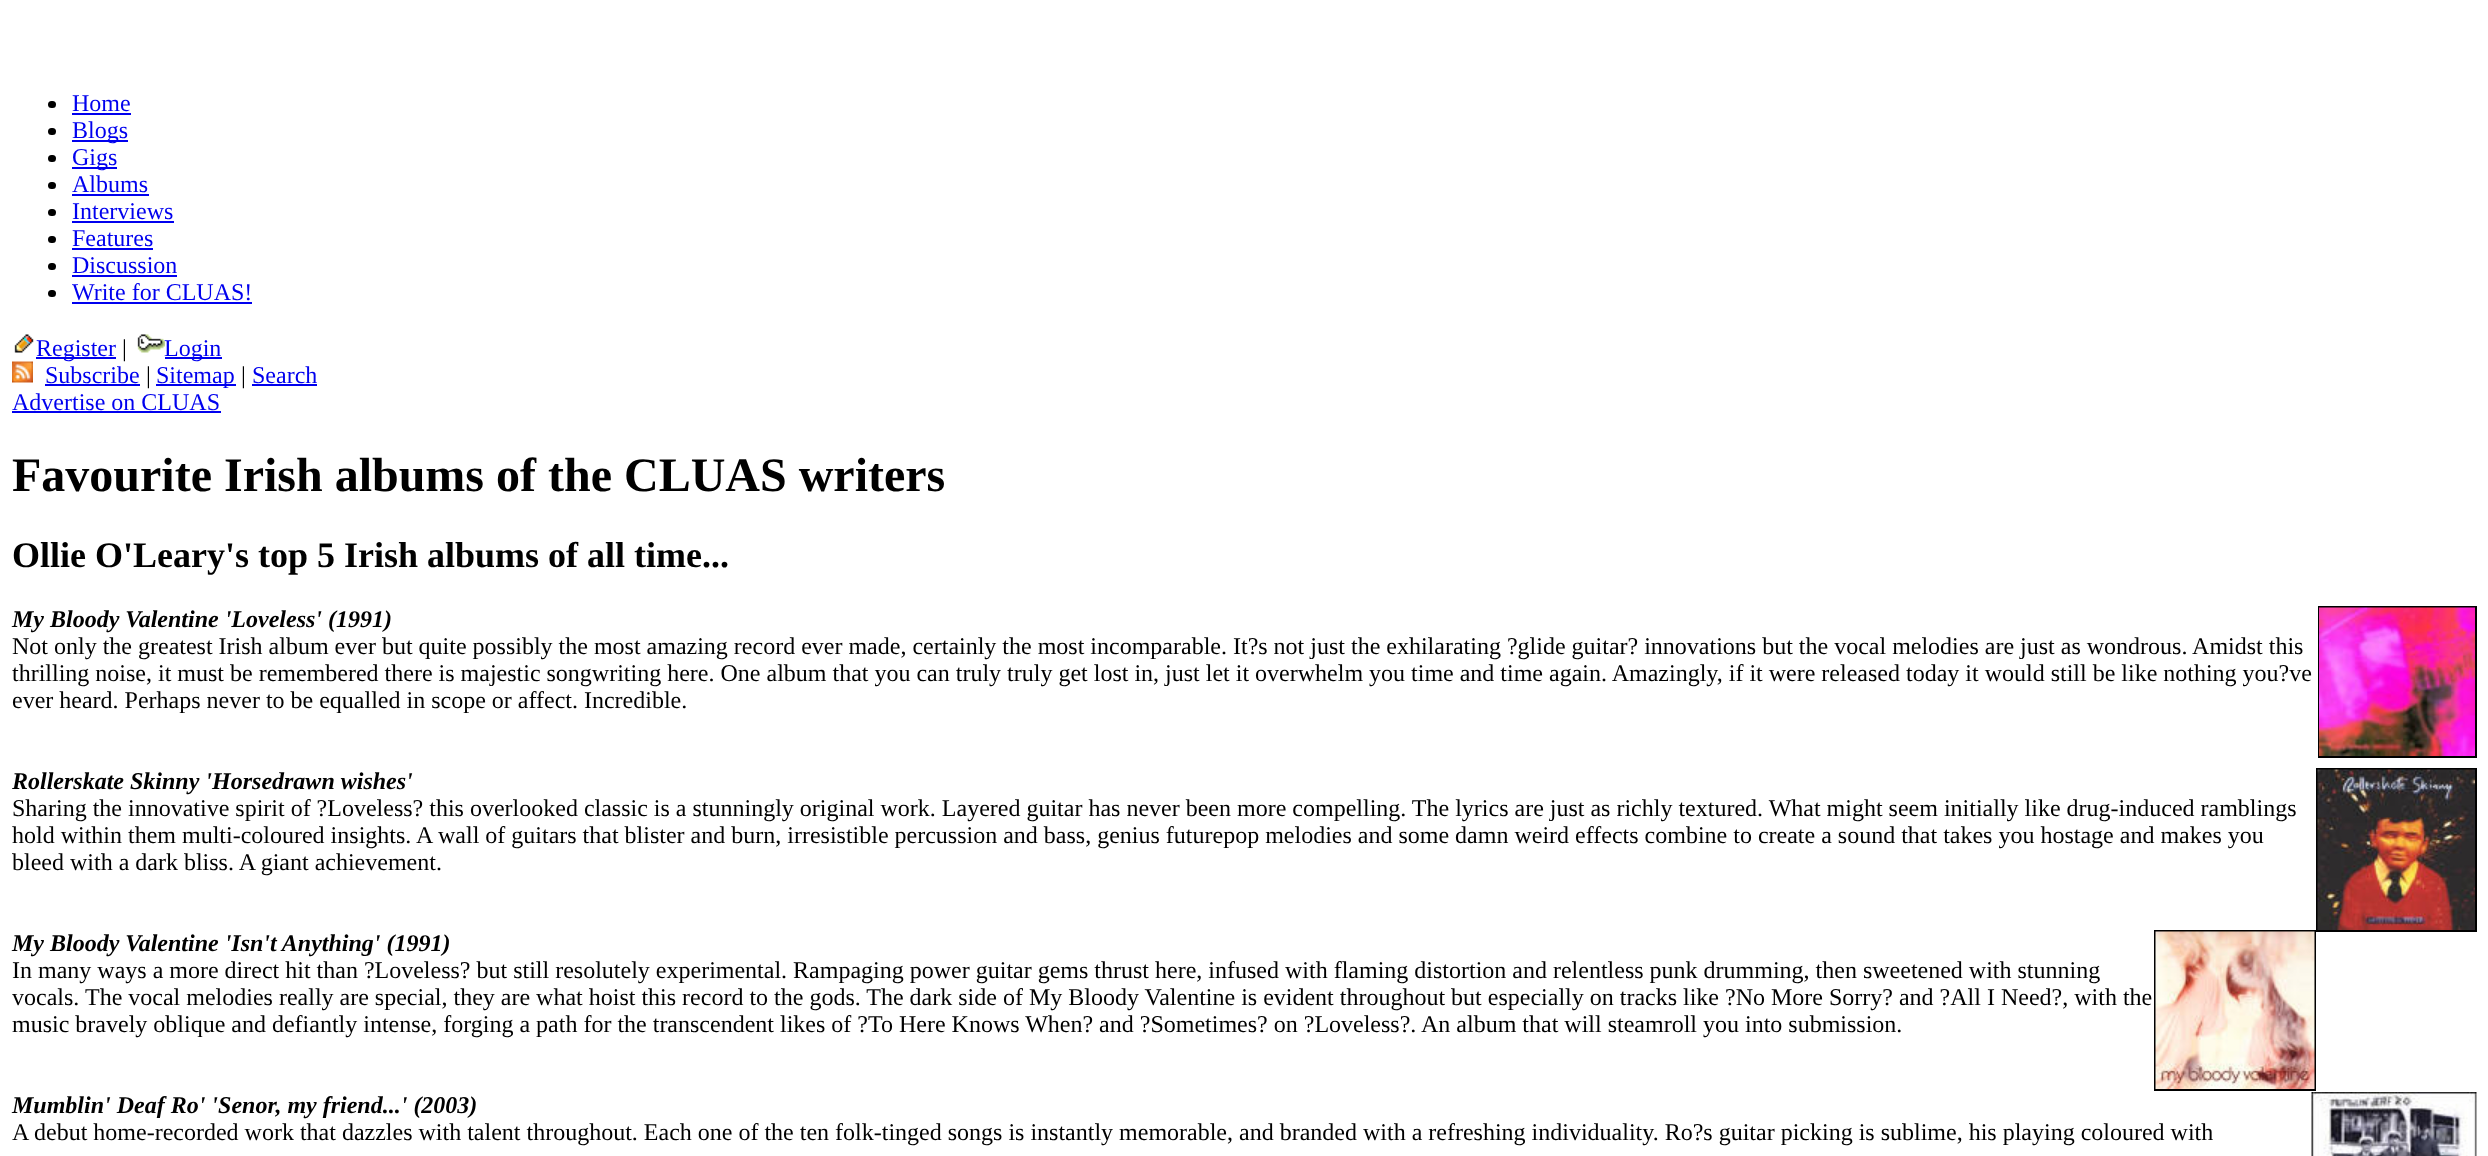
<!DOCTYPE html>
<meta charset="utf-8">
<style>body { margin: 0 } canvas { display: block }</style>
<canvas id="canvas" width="2488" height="1156"></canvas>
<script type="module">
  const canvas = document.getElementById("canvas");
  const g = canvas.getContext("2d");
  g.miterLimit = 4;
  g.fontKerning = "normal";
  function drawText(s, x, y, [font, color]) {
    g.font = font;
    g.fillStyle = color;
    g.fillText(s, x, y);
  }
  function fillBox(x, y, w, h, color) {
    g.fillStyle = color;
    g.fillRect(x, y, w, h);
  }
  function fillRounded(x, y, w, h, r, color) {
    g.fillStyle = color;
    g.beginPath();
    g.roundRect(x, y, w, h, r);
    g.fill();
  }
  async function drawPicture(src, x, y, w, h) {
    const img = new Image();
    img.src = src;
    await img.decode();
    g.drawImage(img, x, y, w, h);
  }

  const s1 = ["24px Liberation Serif", "#0000EE"];
  const s2 = ["24px Liberation Serif", "#000000"];
  const s3 = ["bold 48px Liberation Serif", "#000000"];
  const s4 = ["bold 36px Liberation Serif", "#000000"];
  const s5 = ["italic bold 24px Liberation Serif", "#000000"];

  fillBox(0, 0, 2488, 1156, "#FFFFFF");
  fillRounded(48, 101, 8, 7, 3.5, "#000000");
  drawText("Home", 72, 111, s1);
  fillBox(72, 113, 59, 2, "#0000EE");
  fillRounded(48, 128, 8, 7, 3.5, "#000000");
  fillBox(72, 140, 56, 2, "#0000EE");
  drawText("Blogs", 72, 138, s1);
  fillRounded(48, 155, 8, 7, 3.5, "#000000");
  fillBox(72, 167, 45, 2, "#0000EE");
  drawText("Gigs", 72, 165, s1);
  fillRounded(48, 182, 8, 7, 3.5, "#000000");
  drawText("Albums", 72, 192, s1);
  fillBox(72, 194, 77, 2, "#0000EE");
  fillRounded(48, 209, 8, 7, 3.5, "#000000");
  drawText("Interviews", 72, 219, s1);
  fillBox(72, 221, 102, 2, "#0000EE");
  fillRounded(48, 236, 8, 7, 3.5, "#000000");
  drawText("Features", 72, 246, s1);
  fillBox(72, 248, 81, 2, "#0000EE");
  fillRounded(48, 263, 8, 7, 3.5, "#000000");
  drawText("Discussion", 72, 273, s1);
  fillBox(72, 275, 105, 2, "#0000EE");
  fillRounded(48, 290, 8, 7, 3.5, "#000000");
  drawText("Write for CLUAS!", 72, 300, s1);
  fillBox(72, 302, 180, 2, "#0000EE");
  await drawPicture("pic1.png", 14, 334, 20, 19);
  fillBox(36, 357, 80, 2, "#0000EE");
  drawText("Register", 36, 356, s1);
  drawText("|", 122, 356, s2);
  await drawPicture("pic2.png", 137, 334, 28, 19);
  fillBox(165, 357, 57, 2, "#0000EE");
  drawText("Login", 164, 356, s1);
  await drawPicture("pic3.png", 12, 361, 21, 22);
  drawText("Subscribe", 45, 383, s1);
  fillBox(45, 384, 95, 2, "#0000EE");
  drawText("|", 146, 383, s2);
  fillBox(156, 384, 80, 2, "#0000EE");
  drawText("Sitemap", 156, 383, s1);
  drawText("|", 241, 383, s2);
  drawText("Search", 252, 383, s1);
  fillBox(252, 384, 65, 2, "#0000EE");
  drawText("Advertise on CLUAS", 12, 410, s1);
  fillBox(12, 411, 209, 2, "#0000EE");
  drawText("Favourite Irish albums of the CLUAS writers", 12, 491, s3);
  drawText("Ollie O'Leary's top 5 Irish albums of all time...", 12, 567, s4);
  drawText("My Bloody Valentine 'Loveless' (1991)", 12, 627, s5);
  g.strokeStyle = "#000000";
  g.lineWidth = 2;
  g.strokeRect(2319, 607, 157, 150);
  await drawPicture("pic4.png", 2319, 607, 156, 149);
  drawText("Not only the greatest Irish album ever but quite possibly the most amazing record ever made, certainly the most incomparable. It?s not just the exhilarating ?glide guitar? innovations but the vocal melodies are just as wondrous. Amidst this", 12, 654, s2);
  drawText("thrilling noise, it must be remembered there is majestic songwriting here. One album that you can truly truly get lost in, just let it overwhelm you time and time again. Amazingly, if it were released today it would still be like nothing you?ve", 12, 681, s2);
  drawText("ever heard. Perhaps never to be equalled in scope or affect. Incredible.", 12, 708, s2);
  drawText("Rollerskate Skinny 'Horsedrawn wishes'", 12, 789, s5);
  g.strokeRect(2317, 769, 159, 162);
  await drawPicture("pic5.png", 2317, 769, 158, 161);
  drawText("Sharing the innovative spirit of ?Loveless? this overlooked classic is a stunningly original work. Layered guitar has never been more compelling. The lyrics are just as richly textured. What might seem initially like drug-induced ramblings", 12, 816, s2);
  drawText("hold within them multi-coloured insights. A wall of guitars that blister and burn, irresistible percussion and bass, genius futurepop melodies and some damn weird effects combine to create a sound that takes you hostage and makes you", 12, 843, s2);
  drawText("bleed with a dark bliss. A giant achievement.", 12, 870, s2);
  drawText("My Bloody Valentine 'Isn't Anything' (1991)", 12, 951, s5);
  g.strokeRect(2155, 931, 160, 159);
  await drawPicture("pic6.png", 2155, 931, 160, 158);
  drawText("In many ways a more direct hit than ?Loveless? but still resolutely experimental. Rampaging power guitar gems thrust here, infused with flaming distortion and relentless punk drumming, then sweetened with stunning", 12, 978, s2);
  drawText("vocals.", 12, 1005, s2);
  drawText("The vocal melodies really are special, they are what hoist this record to the gods. The dark side of My Bloody Valentine is evident throughout but especially on tracks like ?No More Sorry? and ?All I Need?, with the", 85, 1005, s2);
  drawText("music bravely oblique and defiantly intense, forging a path for the transcendent likes of ?To Here Knows When? and ?Sometimes? on ?Loveless?. An album that will steamroll you into submission.", 12, 1032, s2);
  drawText("Mumblin' Deaf Ro' 'Senor, my friend...' (2003)", 12, 1113, s5);
  await drawPicture("pic7.png", 2311, 1092, 166, 64);
  drawText("A debut home-recorded work that dazzles with talent throughout. Each one of the ten folk-tinged songs is instantly memorable, and branded with a refreshing individuality. Ro?s guitar picking is sublime, his playing coloured with", 12, 1140, s2);
</script>
